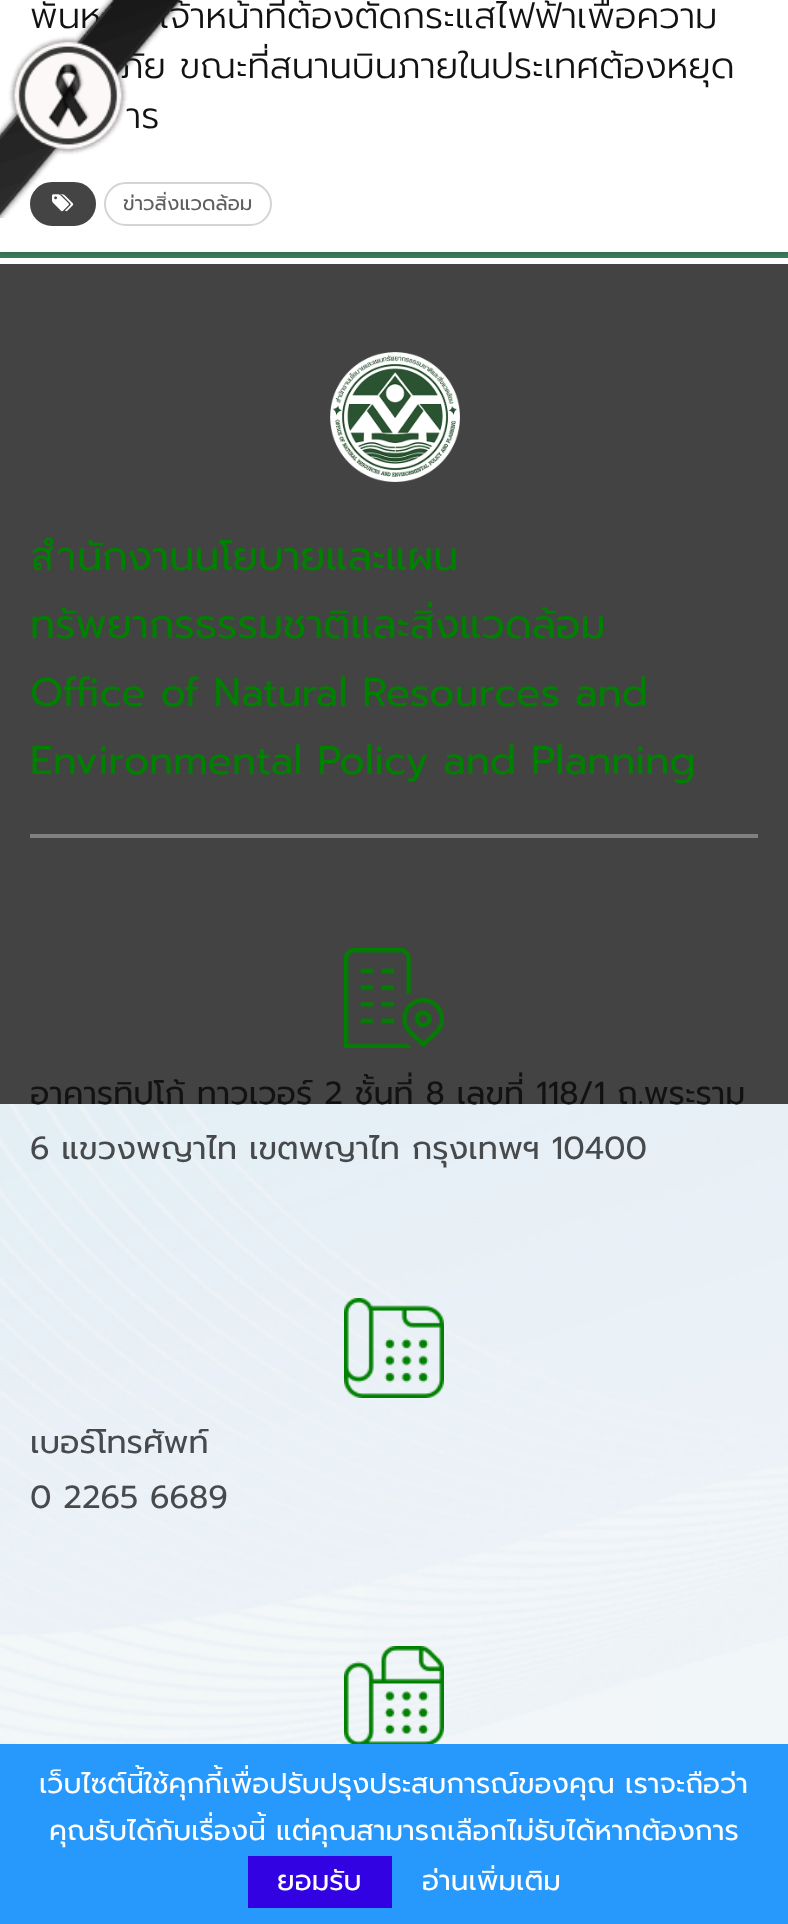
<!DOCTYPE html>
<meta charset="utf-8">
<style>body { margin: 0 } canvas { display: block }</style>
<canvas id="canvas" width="788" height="1924"></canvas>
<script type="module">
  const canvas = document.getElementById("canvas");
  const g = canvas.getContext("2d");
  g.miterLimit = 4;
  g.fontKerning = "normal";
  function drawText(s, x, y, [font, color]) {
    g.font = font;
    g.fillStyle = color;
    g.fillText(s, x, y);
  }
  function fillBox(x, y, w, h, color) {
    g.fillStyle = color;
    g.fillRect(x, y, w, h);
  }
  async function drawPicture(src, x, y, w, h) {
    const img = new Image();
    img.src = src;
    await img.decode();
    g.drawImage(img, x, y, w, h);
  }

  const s1 = ["300 36px Prompt", "#121212"];
  const s2 = ["20px Prompt", "#5F5F5F"];
  const s3 = ["40px Prompt", "#008000"];
  const s4 = ["32px Prompt", "#121212"];
  const s5 = ["32px Prompt", "#474A4C"];
  const s6 = ["28px Prompt", "#FFFFFF"];

  fillBox(0, 0, 788, 1924, "#434343");
  fillBox(0, 252, 788, 6, "#3B7A57");
  g.fillStyle = "rgba(0, 0, 0, 0.27)";
  g.filter = "blur(2px)";
  g.beginPath();
  g.rect(0, -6, 788, 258);
  g.fill();
  g.filter = "none";
  fillBox(0, 0, 788, 252, "#FFFFFF");
  drawText("พันห", 30, 28, s1);
  drawText("เจ้าหน้าที่ต้องตัดกระแสไฟฟ้าเพื่อความ", 159, 28, s1);
  drawText("ภัย ขณะที่สนานบินภายในประเทศต้องหยุด", 120, 78, s1);
  drawText("าร", 126, 128, s1);
  g.fillStyle = "#444444";
  g.beginPath();
  g.roundRect(31, 183, 64, 42, 21);
  g.fill();
  g.strokeStyle = "#444444";
  g.lineWidth = 2;
  g.stroke();
  await drawPicture("pic2.png", 52, 194, 22, 18);
  g.beginPath();
  g.roundRect(105, 183, 166, 42, 21);
  g.strokeStyle = "#D4D4D4";
  g.stroke();
  drawText("ข่าวสิ่งแวดล้อม", 123, 210, s2);
  await drawPicture("pic1.png", 0, 0, 180, 218);
  await drawPicture("pic3.png", 0, 1104, 788, 640);
  fillBox(0, 258, 788, 6, "#FFFFFF");
  await drawPicture("pic4.png", 330, 352, 130, 130);
  drawText("สำนักงานนโยบายและแผน", 30, 570, s3);
  drawText("ทรัพยากรธรรมชาติและสิ่งแวดล้อม", 30, 638, s3);
  drawText("Office of Natural Resources and", 30, 706, s3);
  drawText("Environmental Policy and Planning", 30, 774, s3);
  fillBox(30, 834, 728, 4, "#808080");
  await drawPicture("pic5.png", 344, 948, 100, 100);
  drawText("อาคารทิปโก้ ทาวเวอร์ 2 ชั้นที่ 8 เลขที่ 118/1 ถ.พระราม", 30, 1104, s4);
  drawText("6 แขวงพญาไท เขตพญาไท กรุงเทพฯ 10400", 30, 1159, s5);
  await drawPicture("pic6.png", 344, 1298, 100, 100);
  drawText("เบอร์โทรศัพท์", 30, 1453, s5);
  drawText("0 2265 6689", 30, 1508, s5);
  await drawPicture("pic7.png", 344, 1646, 100, 98);
  fillBox(0, 1744, 788, 180, "#2899FC");
  drawText("เว็บไซต์นี้ใช้คุกกี้เพื่อปรับปรุงประสบการณ์ของคุณ เราจะถือว่า", 39, 1793, s6);
  drawText("คุณรับได้กับเรื่องนี้ แต่คุณสามารถเลือกไม่รับได้หากต้องการ", 49, 1840, s6);
  fillBox(248, 1856, 144, 52, "#3202E2");
  drawText("ยอมรับ", 277, 1890, s6);
  drawText("อ่านเพิ่มเติม", 422, 1890, s6);
</script>
